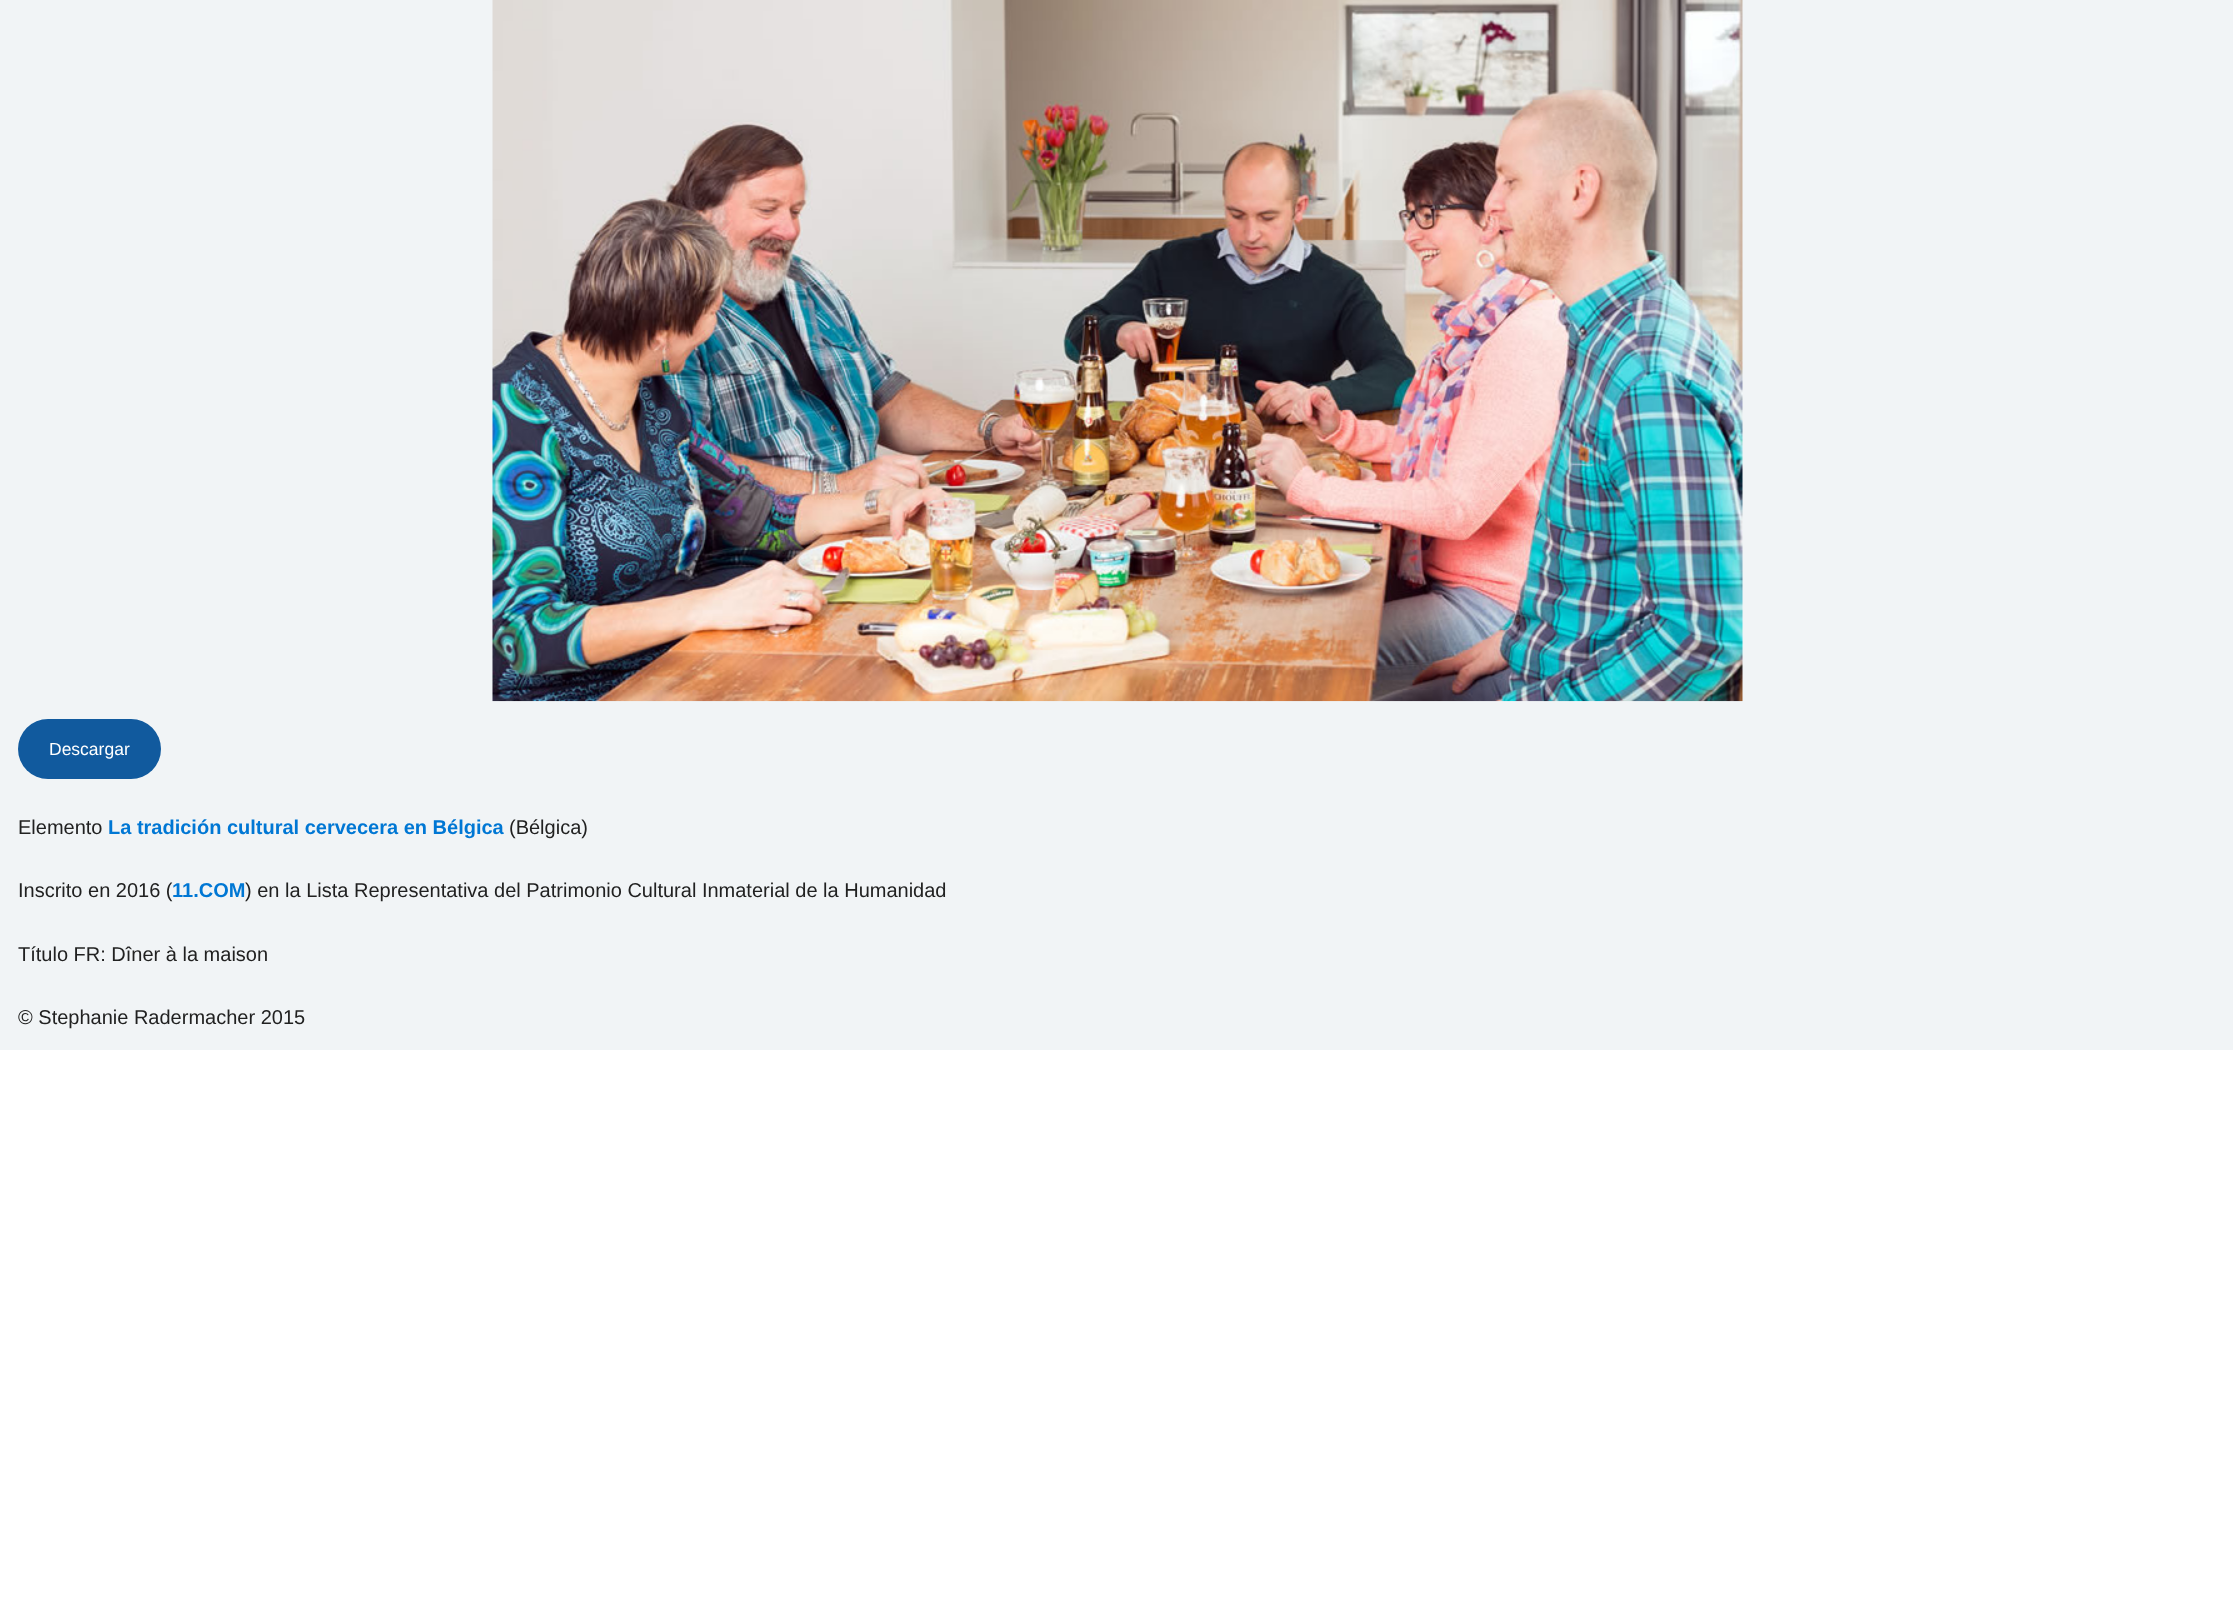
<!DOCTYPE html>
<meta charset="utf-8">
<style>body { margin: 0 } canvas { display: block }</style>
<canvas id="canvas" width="2233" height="1621"></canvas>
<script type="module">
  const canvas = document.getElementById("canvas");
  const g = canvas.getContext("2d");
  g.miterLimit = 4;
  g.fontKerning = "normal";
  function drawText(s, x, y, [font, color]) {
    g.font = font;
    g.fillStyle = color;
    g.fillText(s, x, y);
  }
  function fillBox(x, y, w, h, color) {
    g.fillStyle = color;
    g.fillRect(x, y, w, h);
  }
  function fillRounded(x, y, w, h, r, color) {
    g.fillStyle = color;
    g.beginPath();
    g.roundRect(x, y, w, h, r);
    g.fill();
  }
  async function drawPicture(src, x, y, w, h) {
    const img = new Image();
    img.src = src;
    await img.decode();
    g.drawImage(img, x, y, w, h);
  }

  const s1 = ["17.5px Liberation Sans", "#FFFFFF"];
  const s2 = ["20px Liberation Sans", "#212121"];
  const s3 = ["bold 20px Liberation Sans", "#0077D4"];

  fillBox(0, 0, 2233, 1621, "#FFFFFF");
  fillBox(0, 0, 2233, 1050, "#F1F4F6");
  await drawPicture("pic1.png", 492, 0, 1251, 702);
  fillRounded(18, 719, 143, 60, 30, "#115A9E");
  drawText("Descargar", 49, 755, s1);
  drawText("Elemento", 18, 834, s2);
  drawText("La tradición cultural cervecera en Bélgica", 108, 834, s3);
  drawText("(Bélgica)", 509, 834, s2);
  drawText("Inscrito en 2016 (", 18, 897, s2);
  drawText("11.COM", 172, 897, s3);
  drawText(") en la Lista Representativa del Patrimonio Cultural Inmaterial de la Humanidad", 245, 897, s2);
  drawText("Título FR: Dîner à la maison", 18, 961, s2);
  drawText("© Stephanie Radermacher 2015", 18, 1024, s2);
</script>
